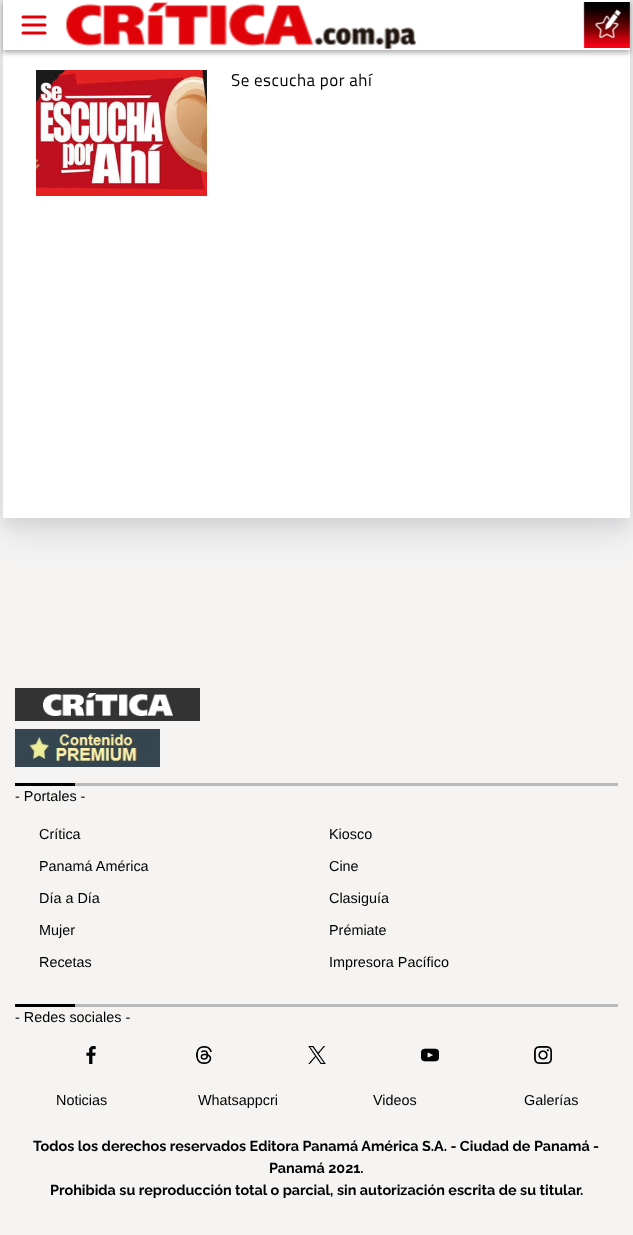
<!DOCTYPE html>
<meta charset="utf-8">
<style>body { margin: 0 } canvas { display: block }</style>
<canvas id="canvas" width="633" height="1235"></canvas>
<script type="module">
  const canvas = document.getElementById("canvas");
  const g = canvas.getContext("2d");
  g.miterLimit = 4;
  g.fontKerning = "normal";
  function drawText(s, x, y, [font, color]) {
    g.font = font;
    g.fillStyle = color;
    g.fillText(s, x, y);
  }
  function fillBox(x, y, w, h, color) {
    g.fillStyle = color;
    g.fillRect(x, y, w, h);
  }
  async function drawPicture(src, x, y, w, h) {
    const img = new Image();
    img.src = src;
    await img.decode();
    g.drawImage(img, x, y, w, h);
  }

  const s1 = ["17px Titillium Web", "#000000"];
  const s2 = ["14.4px Liberation Sans", "#000000"];
  const s3 = ["bold 14.4px Raleway", "#000000"];

  fillBox(0, 0, 633, 1235, "#F5F4F3");
  g.fillStyle = "rgba(0, 0, 0, 0.07)";
  g.filter = "blur(7.5px)";
  g.beginPath();
  g.rect(3, -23, 627, 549);
  g.fill();
  g.filter = "none";
  g.fillStyle = "rgba(50, 50, 93, 0.1)";
  g.filter = "blur(17.5px)";
  g.beginPath();
  g.rect(3, -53, 627, 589);
  g.fill();
  g.filter = "none";
  fillBox(3, 50, 627, 468, "#FFFFFF");
  g.fillStyle = "rgba(0, 0, 0, 0.3)";
  g.filter = "blur(2.5px)";
  g.beginPath();
  g.rect(3, 3, 627, 50);
  g.fill();
  g.filter = "none";
  fillBox(3, 0, 627, 50, "#FFFFFF");
  g.beginPath();
  g.moveTo(23, 17);
  g.lineTo(45, 17);
  g.moveTo(23, 25);
  g.lineTo(45, 25);
  g.moveTo(23, 33);
  g.lineTo(45, 33);
  g.strokeStyle = "#DF0009";
  g.lineWidth = 3;
  g.lineCap = "round";
  g.stroke();
  await drawPicture("pic1.png", 65, 2, 352, 48);
  await drawPicture("pic2.png", 583, 2, 47, 46);
  await drawPicture("pic3.png", 36, 70, 171, 126);
  g.letterSpacing = "0.5px";
  drawText("Se escucha por ahí", 231, 86, s1);
  fillBox(15, 688, 185, 33, "#333333");
  await drawPicture("pic4.png", 43, 693, 130, 23);
  await drawPicture("pic5.png", 15, 729, 145, 38);
  fillBox(15, 783, 60, 3, "#000000");
  fillBox(75, 783, 543, 3, "#BBBBBB");
  g.letterSpacing = "0px";
  drawText("- Portales -", 15, 801, s2);
  drawText("Crítica", 39, 839, s2);
  drawText("Panamá América", 39, 871, s2);
  drawText("Día a Día", 39, 903, s2);
  drawText("Mujer", 39, 935, s2);
  drawText("Recetas", 39, 967, s2);
  drawText("Kiosco", 329, 839, s2);
  drawText("Cine", 329, 871, s2);
  drawText("Clasiguía", 329, 903, s2);
  drawText("Prémiate", 329, 935, s2);
  drawText("Impresora Pacífico", 329, 967, s2);
  fillBox(15, 1004, 60, 3, "#000000");
  fillBox(75, 1004, 543, 3, "#BBBBBB");
  drawText("- Redes sociales -", 15, 1022, s2);
  await drawPicture("pic6.png", 86, 1046, 10, 18);
  await drawPicture("pic7.png", 196, 1046, 16, 18);
  await drawPicture("pic8.png", 308, 1046, 18, 18);
  await drawPicture("pic9.png", 421, 1048, 18, 14);
  await drawPicture("pic10.png", 534, 1046, 18, 18);
  drawText("Noticias", 56, 1105, s2);
  drawText("Whatsappcri", 198, 1105, s2);
  drawText("Videos", 373, 1105, s2);
  drawText("Galerías", 524, 1105, s2);
  drawText("Todos los derechos reservados Editora Panamá América S.A. - Ciudad de Panamá -", 33, 1151, s3);
  drawText("Panamá 2021.", 269, 1173, s3);
  drawText("Prohibida su reproducción total o parcial, sin autorización escrita de su titular.", 50, 1195, s3);
</script>
